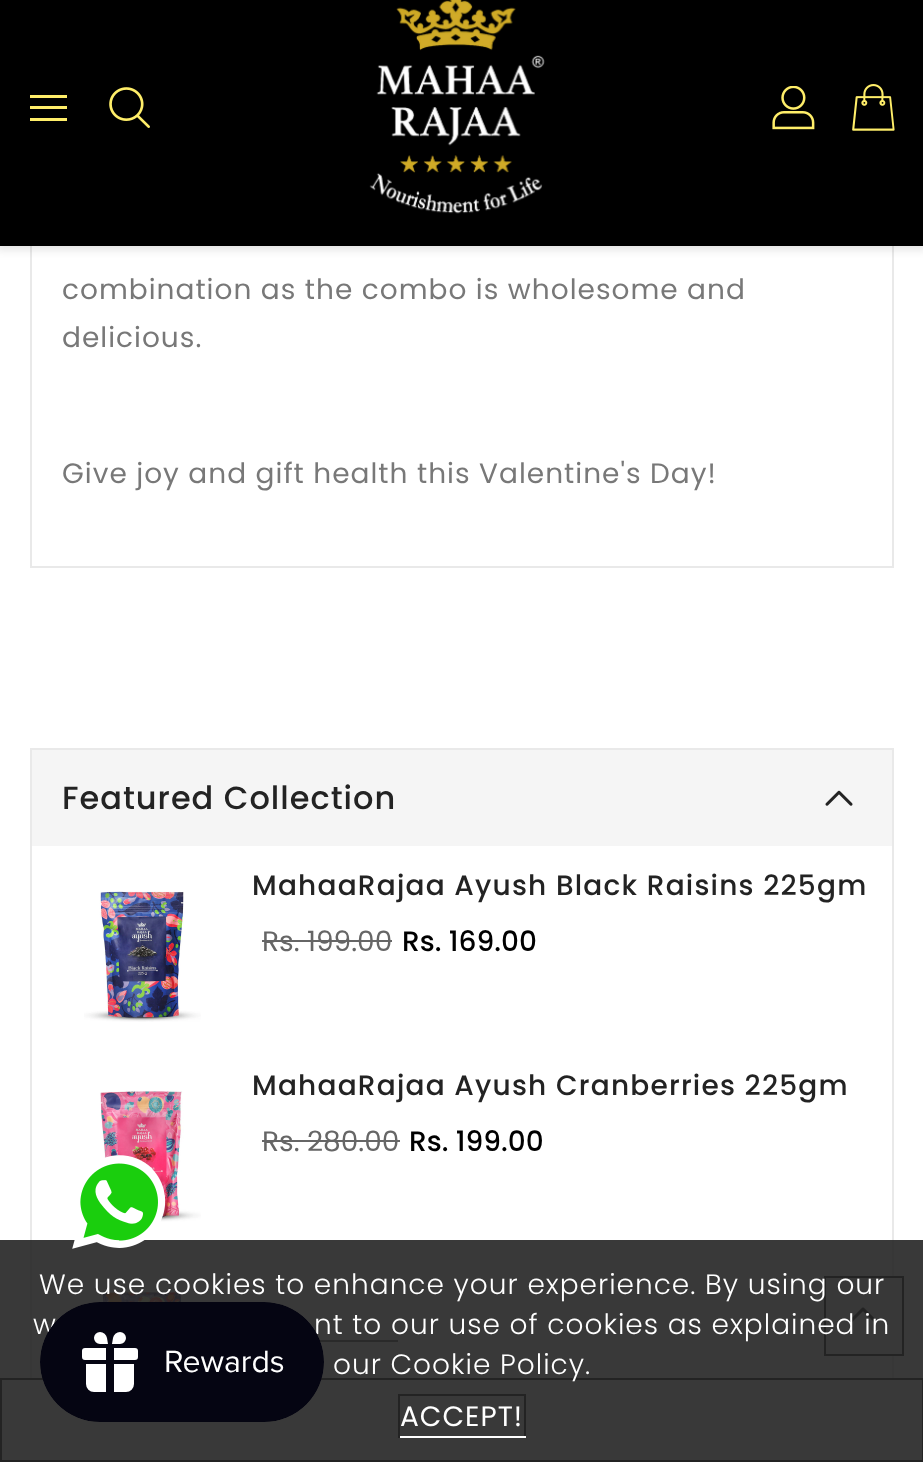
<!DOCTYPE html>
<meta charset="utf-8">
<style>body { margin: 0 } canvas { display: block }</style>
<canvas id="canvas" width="923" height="1462"></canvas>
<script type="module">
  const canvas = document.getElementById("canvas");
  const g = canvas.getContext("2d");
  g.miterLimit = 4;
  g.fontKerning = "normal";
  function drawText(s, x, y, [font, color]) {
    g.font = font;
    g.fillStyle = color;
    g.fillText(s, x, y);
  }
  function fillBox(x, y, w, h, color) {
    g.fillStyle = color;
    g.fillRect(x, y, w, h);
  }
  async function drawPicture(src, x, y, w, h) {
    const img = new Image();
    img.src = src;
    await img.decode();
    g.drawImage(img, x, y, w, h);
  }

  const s1 = ["28px Poppins", "#787878"];
  const s2 = ["500 32px Poppins", "#232323"];
  const s3 = ["500 28px Poppins", "#232323"];
  const s4 = ["28px Poppins", "#666666"];
  const s5 = ["500 28px Poppins", "#000000"];
  const s6 = ["300 28px Poppins", "#FFFFFF"];
  const s7 = ["28px Poppins", "#FFFFFF"];

  fillBox(0, 0, 923, 1462, "#FFFFFF");
  g.strokeStyle = "#E9E9E9";
  g.lineWidth = 2;
  g.strokeRect(31, -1, 862, 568);
  g.fillStyle = "rgba(0, 0, 0, 0.1)";
  g.filter = "blur(4px)";
  g.beginPath();
  g.rect(-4, -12, 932, 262);
  g.fill();
  g.filter = "none";
  fillBox(0, 0, 923, 246, "#000000");
  fillBox(30, 95, 37, 3, "#FFEE69");
  fillBox(30, 106, 37, 3, "#FFEE69");
  fillBox(30, 118, 37, 3, "#FFEE69");
  await drawPicture("pic1.png", 109, 87, 41, 41);
  await drawPicture("pic2.png", 369, 0, 176, 214);
  await drawPicture("pic3.png", 772, 86, 43, 44);
  await drawPicture("pic4.png", 852, 84, 43, 47);
  g.letterSpacing = "1px";
  drawText("combination as the combo is wholesome and", 62, 299, s1);
  drawText("delicious.", 62, 347, s1);
  drawText("Give joy and gift health this Valentine's Day!", 62, 483, s1);
  g.strokeRect(31, 749, 862, 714);
  fillBox(30, 1380, 864, 80, "#FFFFFF");
  g.strokeStyle = "#232323";
  g.strokeRect(1, 1379, 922, 82);
  fillBox(32, 750, 860, 96, "#F5F5F5");
  drawText("Featured Collection", 62, 809, s2);
  await drawPicture("pic5.png", 825, 790, 28, 16);
  await drawPicture("pic6.png", 84, 891, 117, 131);
  g.letterSpacing = "1.2px";
  drawText("MahaaRajaa Ayush Black Raisins 225gm", 252, 895, s3);
  g.letterSpacing = "0px";
  drawText("Rs. 199.00", 262, 951, s4);
  fillBox(262, 940, 130, 2, "#666666");
  drawText("Rs. 169.00", 402, 951, s5);
  await drawPicture("pic7.png", 82, 1090, 119, 132);
  g.letterSpacing = "1.2px";
  drawText("MahaaRajaa Ayush Cranberries 225gm", 252, 1095, s3);
  g.letterSpacing = "0px";
  drawText("Rs. 280.00", 262, 1151, s4);
  fillBox(262, 1140, 138, 2, "#666666");
  drawText("Rs. 199.00", 409, 1151, s5);
  await drawPicture("pic8.png", 82, 1292, 119, 13);
  fillBox(319, 1340, 79, 2, "#666666");
  g.fillStyle = "#EDEDED";
  g.beginPath();
  g.rect(825, 1277, 78, 78);
  g.fill();
  g.stroke();
  await drawPicture("pic11.png", 850, 1307, 27, 16);
  fillBox(0, 1240, 923, 220, "rgba(35, 35, 35, 0.9)");
  await drawPicture("pic9.png", 72, 1155, 94, 94);
  g.letterSpacing = "1px";
  drawText("We use cookies to enhance your experience. By using our", 39, 1294, s6);
  drawText("w", 33, 1334, s6);
  drawText("nt to our use of cookies as explained in", 314, 1334, s6);
  drawText("our Cookie Policy.", 333, 1374, s6);
  fillBox(398, 1394, 128, 2, "#232323");
  fillBox(524, 1394, 2, 44, "#232323");
  fillBox(398, 1436, 128, 2, "#FFFFFF");
  fillBox(398, 1394, 2, 44, "#232323");
  drawText("ACCEPT!", 400, 1426, s7);
  await drawPicture("pic10.png", 40, 1302, 284, 120);
</script>
